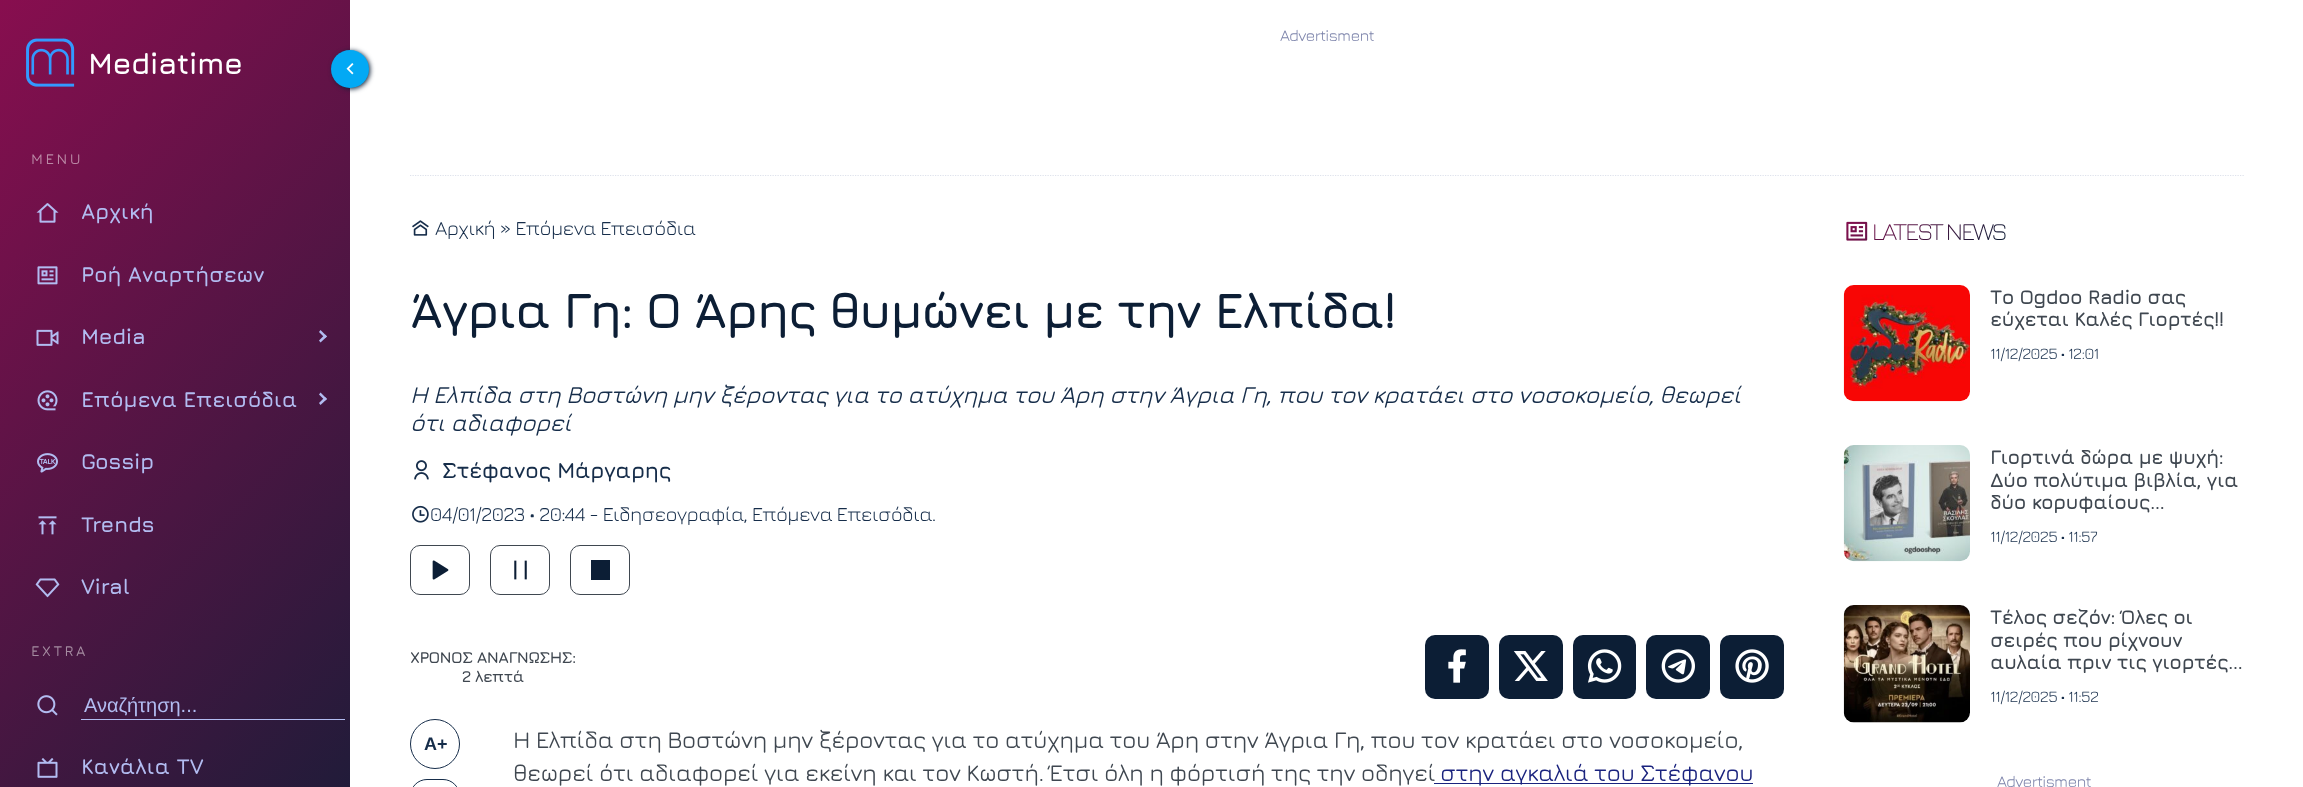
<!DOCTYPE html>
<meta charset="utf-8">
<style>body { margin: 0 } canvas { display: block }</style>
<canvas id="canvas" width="2303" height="787"></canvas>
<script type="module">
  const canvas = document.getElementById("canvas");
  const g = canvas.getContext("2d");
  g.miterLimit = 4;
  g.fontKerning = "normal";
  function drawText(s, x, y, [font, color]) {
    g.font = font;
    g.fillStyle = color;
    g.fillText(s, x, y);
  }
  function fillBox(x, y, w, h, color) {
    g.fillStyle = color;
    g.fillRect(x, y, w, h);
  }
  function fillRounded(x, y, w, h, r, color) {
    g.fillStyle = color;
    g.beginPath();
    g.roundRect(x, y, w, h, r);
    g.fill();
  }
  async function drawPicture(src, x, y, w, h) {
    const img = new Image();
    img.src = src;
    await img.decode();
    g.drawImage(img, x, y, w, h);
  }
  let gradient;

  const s1 = ["bold 30px Jura", "#FFFFFF"];
  const s2 = ["600 14.5px Jura", "#BA88A5"];
  const s3 = ["bold 21.6px Jura", "#B2BCF1"];
  const s4 = ["600 14.5px Jura", "#A48BA0"];
  const s5 = ["20px Liberation Sans", "#B2BCF1"];
  const s6 = ["16.25px Jura", "#7D84AB"];
  const s7 = ["20px Jura", "#162D4A"];
  const s8 = ["bold 50px Jura", "#0C1E35"];
  const s9 = ["italic 500 24px Jura", "#162D4A"];
  const s10 = ["bold 22px Jura", "#162D4A"];
  const s11 = ["bold 16px Jura", "#3F4750"];
  const s12 = ["bold 18px Liberation Sans", "#162D4A"];
  const s13 = ["500 23.75px Jura", "#3F4750"];
  const s14 = ["500 23.75px Jura", "#1A237E"];
  const s15 = ["bold 20px Jura", "#3F4750"];
  const s16 = ["16px Jura", "#162D4A"];

  fillBox(0, 0, 2303, 787, "#FFFFFF");
  gradient = g.createLinearGradient(524, 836, -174, 186);
  gradient.addColorStop(0, "#0C1E35");
  gradient.addColorStop(1, "#880E4F");
  g.fillStyle = gradient;
  g.fillRect(0, 0, 350, 787);
  await drawPicture("pic1.png", 26, 38, 49, 49);
  g.letterSpacing = "-0.62px";
  drawText("Mediatime", 88, 74, s1);
  g.letterSpacing = "2.5px";
  drawText("MENU", 31, 164, s2);
  await drawPicture("pic2.png", 36, 203, 23, 20);
  g.letterSpacing = "-0.3px";
  drawText("Αρχική", 81, 219, s3);
  await drawPicture("pic3.png", 37, 266, 21, 19);
  drawText("Ροή Αναρτήσεων", 81, 282, s3);
  await drawPicture("pic4.png", 36, 329, 23, 17);
  drawText("Media", 81, 344, s3);
  g.beginPath();
  g.moveTo(319, 332);
  g.lineTo(320.5, 330);
  g.lineTo(327, 336.5);
  g.lineTo(325, 338);
  g.closePath();
  g.fill();
  g.beginPath();
  g.moveTo(319, 340.5);
  g.lineTo(325, 334.5);
  g.lineTo(327, 336.5);
  g.lineTo(320.5, 342.5);
  g.closePath();
  g.fill();
  await drawPicture("pic5.png", 37, 390, 21, 21);
  drawText("Επόμενα Επεισόδια", 81, 407, s3);
  g.beginPath();
  g.moveTo(319, 394.5);
  g.lineTo(320.5, 392.5);
  g.lineTo(327, 399);
  g.lineTo(325, 400.5);
  g.closePath();
  g.fill();
  g.beginPath();
  g.moveTo(319, 403);
  g.lineTo(325, 397);
  g.lineTo(327, 399);
  g.lineTo(320.5, 405);
  g.closePath();
  g.fill();
  await drawPicture("pic6.png", 37, 453, 21, 20);
  drawText("Gossip", 81, 469, s3);
  await drawPicture("pic7.png", 38, 516, 19, 19);
  drawText("Trends", 81, 532, s3);
  await drawPicture("pic8.png", 35, 578, 25, 20);
  drawText("Viral", 81, 594, s3);
  g.letterSpacing = "2.5px";
  drawText("EXTRA", 31, 656, s4);
  await drawPicture("pic9.png", 37, 695, 21, 21);
  fillBox(81, 719, 264, 1, "#B2BCF1");
  g.letterSpacing = "0px";
  drawText("Αναζήτηση...", 84, 712, s5);
  await drawPicture("pic10.png", 37, 758, 21, 20);
  g.letterSpacing = "-0.3px";
  drawText("Κανάλια TV", 81, 774, s3);
  g.fillStyle = "#0C1E35";
  g.filter = "blur(2.5px)";
  g.beginPath();
  g.roundRect(333, 51, 37, 38, 18.5);
  g.fill();
  g.filter = "none";
  g.fillStyle = "#03A9F4";
  g.beginPath();
  g.arc(350, 69, 19, 0, Math.PI * 2);
  g.fill();
  await drawPicture("pic11.png", 346, 63, 8, 12);
  g.beginPath();
  g.moveTo(410, 175.5);
  g.lineTo(2244, 175.5);
  g.strokeStyle = "#DEE2EC";
  g.lineWidth = 1.2;
  g.setLineDash([1.25, 1.25]);
  g.stroke();
  g.letterSpacing = "-0.62px";
  drawText("Advertisment", 1280, 41, s6);
  await drawPicture("pic12.png", 412, 220, 17, 16);
  drawText("Αρχική » Επόμενα Επεισόδια", 435, 235, s7);
  g.letterSpacing = "-1.9px";
  drawText("Άγρια Γη: Ο Άρης θυμώνει με την Ελπίδα!", 410, 328, s8);
  g.letterSpacing = "-0.62px";
  drawText("Η Ελπίδα στη Βοστώνη μην ξέροντας για το ατύχημα του Άρη στην Άγρια Γη, που τον κρατάει στο νοσοκομείο, θεωρεί", 410, 403, s9);
  drawText("ότι αδιαφορεί", 410, 431, s9);
  await drawPicture("pic13.png", 414, 460, 15, 20);
  drawText("Στέφανος Μάργαρης", 442, 478, s10);
  await drawPicture("pic14.png", 412, 505, 17, 18);
  drawText("04/01/2023 • 20:44 - Ειδησεογραφία, Επόμενα Επεισόδια.", 430, 521, s7);
  g.beginPath();
  g.roundRect(410.5, 545.5, 59, 49, 9.5);
  g.strokeStyle = "#3F4750";
  g.lineWidth = 1;
  g.setLineDash([]);
  g.stroke();
  await drawPicture("pic15.png", 432, 560, 17, 20);
  g.beginPath();
  g.roundRect(490.5, 545.5, 59, 49, 9.5);
  g.stroke();
  await drawPicture("pic16.png", 514, 560, 13, 20);
  g.beginPath();
  g.roundRect(570.5, 545.5, 59, 49, 9.5);
  g.stroke();
  fillBox(591, 560, 19, 20, "#0C1E35");
  drawText("ΧΡΟΝΟΣ ΑΝΑΓΝΩΣΗΣ:", 410, 663, s11);
  drawText("2 λεπτά", 462, 682, s11);
  fillRounded(1425, 635, 64, 64, 10, "#0C1E35");
  await drawPicture("pic17.png", 1448, 649, 18, 34);
  fillRounded(1499, 635, 64, 64, 10, "#0C1E35");
  await drawPicture("pic18.png", 1513, 651, 35, 30);
  fillRounded(1573, 635, 63, 64, 10, "#0C1E35");
  await drawPicture("pic19.png", 1587, 649, 35, 34);
  fillRounded(1646, 635, 64, 64, 10, "#0C1E35");
  await drawPicture("pic20.png", 1661, 649, 34, 34);
  fillRounded(1720, 635, 64, 64, 10, "#0C1E35");
  await drawPicture("pic21.png", 1735, 649, 34, 34);
  g.beginPath();
  g.arc(435, 744, 24.5, 0, Math.PI * 2);
  g.strokeStyle = "#162D4A";
  g.stroke();
  g.letterSpacing = "0px";
  drawText("A+", 424, 750, s12);
  g.beginPath();
  g.roundRect(410.5, 779.5, 49, 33, 24.5);
  g.stroke();
  g.letterSpacing = "-0.62px";
  drawText("Η Ελπίδα στη Βοστώνη μην ξέροντας για το ατύχημα του Άρη στην Άγρια Γη, που τον κρατάει στο νοσοκομείο,", 513, 748, s13);
  drawText("θεωρεί ότι αδιαφορεί για εκείνη και τον Κωστή. Έτσι όλη η φόρτισή της την οδηγεί", 513, 781, s13);
  fillBox(1434, 783, 319, 1, "#1A237E");
  drawText("στην αγκαλιά του Στέφανου", 1440, 781, s14);
  await drawPicture("pic22.png", 1846, 221, 22, 20);
  g.letterSpacing = "-1.9px";
  g.font = "300 25px Jura";
  gradient = g.createLinearGradient(1972, 278, 1877, 183);
  gradient.addColorStop(0, "#0C1E35");
  gradient.addColorStop(1, "#880E4F");
  g.fillStyle = gradient;
  g.fillText("LATEST NEWS", 1872, 240);
  await drawPicture("pic23.png", 1843, 285, 127, 117);
  g.letterSpacing = "-0.62px";
  drawText("Το Ogdoo Radio σας", 1990, 304, s15);
  drawText("εύχεται Καλές Γιορτές!!", 1990, 326, s15);
  drawText("11/12/2025 • 12:01", 1990, 359, s16);
  await drawPicture("pic24.png", 1843, 445, 127, 117);
  drawText("Γιορτινά δώρα με ψυχή:", 1990, 464, s15);
  drawText("Δύο πολύτιμα βιβλία, για", 1990, 487, s15);
  drawText("δύο κορυφαίους…", 1990, 509, s15);
  drawText("11/12/2025 • 11:57", 1990, 542, s16);
  await drawPicture("pic25.png", 1843, 605, 127, 118);
  drawText("Τέλος σεζόν: Όλες οι", 1990, 624, s15);
  drawText("σειρές που ρίχνουν", 1990, 647, s15);
  drawText("αυλαία πριν τις γιορτές…", 1990, 669, s15);
  drawText("11/12/2025 • 11:52", 1990, 702, s16);
  drawText("Advertisment", 1997, 787, s6);
</script>
